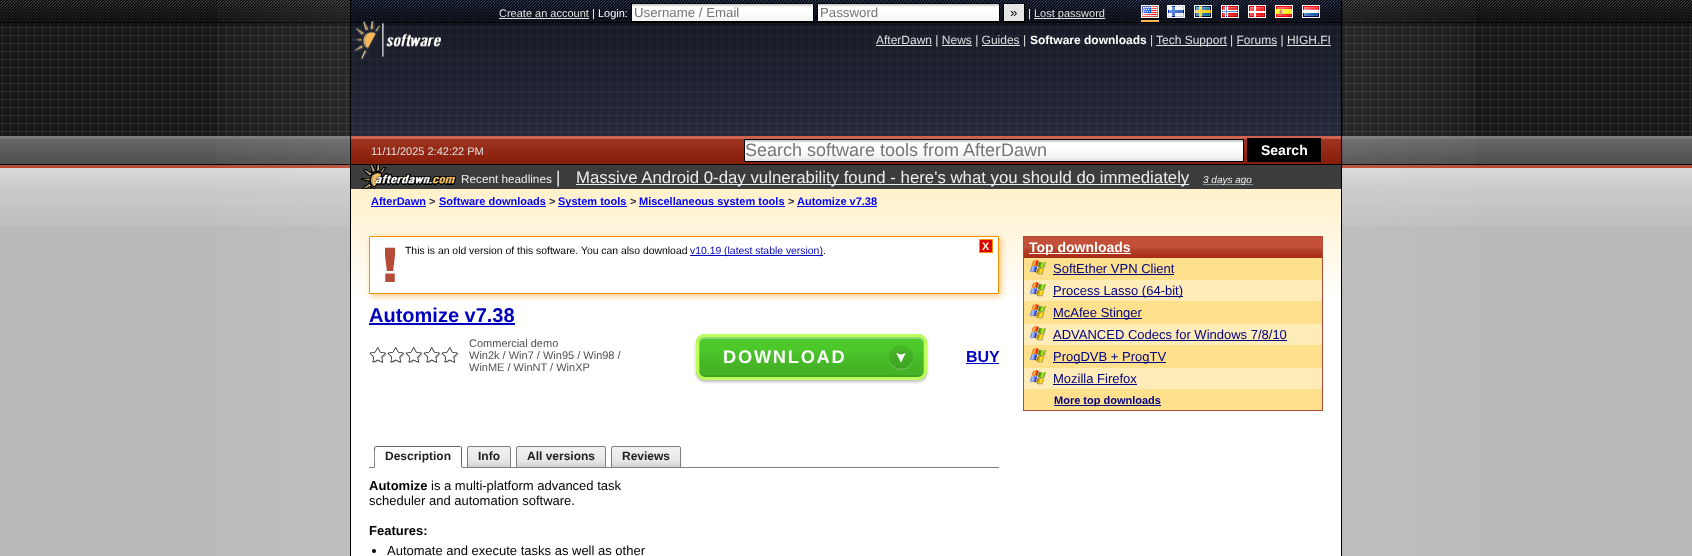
<!DOCTYPE html>
<meta charset="utf-8">
<style>body { margin: 0 } canvas { display: block }</style>
<canvas id="canvas" width="1692" height="556"></canvas>
<script type="module">
  const canvas = document.getElementById("canvas");
  const g = canvas.getContext("2d");
  g.miterLimit = 4;
  g.fontKerning = "normal";
  function drawText(s, x, y, [font, color]) {
    g.font = font;
    g.fillStyle = color;
    g.fillText(s, x, y);
  }
  function fillBox(x, y, w, h, color) {
    g.fillStyle = color;
    g.fillRect(x, y, w, h);
  }
  function fillRounded(x, y, w, h, r, color) {
    g.fillStyle = color;
    g.beginPath();
    g.roundRect(x, y, w, h, r);
    g.fill();
  }
  async function drawPicture(src, x, y, w, h) {
    const img = new Image();
    img.src = src;
    await img.decode();
    g.drawImage(img, x, y, w, h);
  }
  let gradient;

  const s1 = ["11px Liberation Sans", "#E0E0E0"];
  const s2 = ["11px Liberation Sans", "#FFFFFF"];
  const s3 = ["13.25px Liberation Sans", "#757575"];
  const s4 = ["13.25px Liberation Sans", "#000000"];
  const s5 = ["12px Liberation Sans", "#E0E0E0"];
  const s6 = ["bold 12px Liberation Sans", "#FFFFFF"];
  const s7 = ["18px Liberation Sans", "#757575"];
  const s8 = ["bold 14px Liberation Sans", "#FFFFFF"];
  const s9 = ["11.75px Liberation Sans", "#EEEEEE"];
  const s10 = ["16.8px Liberation Sans", "#EEEEEE"];
  const s11 = ["italic 10px Liberation Sans", "#EEEEEE"];
  const s12 = ["bold 11px Liberation Sans", "#0000FF"];
  const s13 = ["bold 11px Liberation Sans", "#30303D"];
  const s14 = ["10.4px Liberation Sans", "#000000"];
  const s15 = ["10.4px Liberation Sans", "#0000BF"];
  const s16 = ["bold 11px Liberation Sans", "#FDF8E0"];
  const s17 = ["bold 20px Liberation Sans", "#0000BF"];
  const s18 = ["11px Liberation Sans", "#505050"];
  const s19 = ["bold 18.25px Liberation Sans", "#FFFFFF"];
  const s20 = ["bold 16px Liberation Sans", "#0000BF"];
  const s21 = ["bold 12px Liberation Sans", "#202020"];
  const s22 = ["bold 13px Liberation Sans", "#000000"];
  const s23 = ["13px Liberation Sans", "#000000"];
  const s24 = ["13px Liberation Sans", "#000080"];
  const s25 = ["bold 11px Liberation Sans", "#000080"];

  fillBox(0, 0, 1692, 556, "#FFFFFF");
  await drawPicture("pic2.png", 0, 0, 1692, 23);
  fillBox(0, 23, 1692, 113, "#181818");
  await drawPicture("pic12.png", 0, 23, 1692, 113);
  await drawPicture("pic16.png", 0, 136, 1692, 29);
  fillBox(0, 226, 1692, 330, "#BABABA");
  await drawPicture("pic19.png", 0, 165, 1692, 61);
  await drawPicture("pic1.png", 217, 0, 1259, 556);
  await drawPicture("pic3.png", 351, 0, 990, 23);
  fillBox(1341, 0, 1, 556, "#000000");
  fillBox(350, 0, 1, 136, "#000000");
  drawText("Create an account", 499, 17, s1);
  fillBox(499, 18, 90, 1, "#E0E0E0");
  drawText("| Login:", 592, 17, s2);
  await drawPicture("pic4.png", 632, 4, 181, 17);
  g.strokeStyle = "#000000";
  g.strokeRect(631.5, 3.5, 182, 18);
  drawText("Username / Email", 634, 17, s3);
  await drawPicture("pic4.png", 818, 4, 181, 17);
  g.strokeRect(817.5, 3.5, 182, 18);
  drawText("Password", 820, 17, s3);
  g.fillStyle = "#E6E6E6";
  g.beginPath();
  g.rect(1003.5, 3.5, 21, 18);
  g.fill();
  g.stroke();
  drawText("»", 1010, 17, s4);
  drawText("|", 1028, 17, s2);
  fillBox(1034, 18, 71, 1, "#E0E0E0");
  drawText("Lost password", 1034, 17, s1);
  fillBox(1141, 20, 18, 2, "#FEB656");
  await drawPicture("pic5.png", 1142, 6, 16, 11);
  g.strokeStyle = "#FFFFFF";
  g.strokeRect(1141.5, 5.5, 17, 12);
  await drawPicture("pic6.png", 1168, 6, 16, 11);
  g.strokeRect(1167.5, 5.5, 17, 12);
  await drawPicture("pic7.png", 1195, 6, 16, 11);
  g.strokeRect(1194.5, 5.5, 17, 12);
  await drawPicture("pic8.png", 1222, 6, 16, 11);
  g.strokeRect(1221.5, 5.5, 17, 12);
  await drawPicture("pic9.png", 1249, 6, 16, 11);
  g.strokeRect(1248.5, 5.5, 17, 12);
  await drawPicture("pic10.png", 1276, 6, 16, 11);
  g.strokeRect(1275.5, 5.5, 17, 12);
  await drawPicture("pic11.png", 1303, 6, 16, 11);
  g.strokeRect(1302.5, 5.5, 17, 12);
  fillBox(351, 23, 990, 113, "#31374F");
  await drawPicture("pic13.png", 351, 23, 990, 113);
  await drawPicture("pic15.png", 351, 23, 990, 113);
  fillBox(0, 23, 1692, 3, "rgba(0, 0, 0, 0.2)");
  await drawPicture("pic14.png", 352, 21, 90, 39);
  fillBox(876, 45, 56, 1, "#E0E0E0");
  drawText("AfterDawn | News | Guides |", 876, 44, s5);
  drawText("Software downloads", 1030, 44, s6);
  drawText("|", 1150, 44, s5);
  fillBox(1156, 45, 71, 1, "#E0E0E0");
  drawText("Tech Support | Forums | HIGH.FI", 1156, 44, s5);
  fillBox(942, 45, 30, 1, "#E0E0E0");
  fillBox(982, 45, 38, 1, "#E0E0E0");
  fillBox(1237, 45, 40, 1, "#E0E0E0");
  fillBox(1287, 45, 44, 1, "#E0E0E0");
  await drawPicture("pic17.png", 351, 136, 990, 28);
  fillBox(350, 136, 1, 420, "#000000");
  drawText("11/11/2025 2:42:22 PM", 371, 155, s1);
  fillBox(745, 159, 498, 2, "#E6E6E6");
  await drawPicture("pic18.png", 745, 140, 498, 19);
  g.strokeStyle = "#000000";
  g.strokeRect(744.5, 139.5, 499, 22);
  drawText("Search software tools from AfterDawn", 745, 156, s7);
  fillBox(1247, 138, 74, 24, "#000000");
  drawText("Search", 1261, 155, s8);
  fillBox(351, 295, 990, 261, "#FFFFFF");
  await drawPicture("pic20.png", 351, 189, 990, 106);
  fillBox(351, 165, 990, 24, "#3C3C3C");
  await drawPicture("pic21.png", 361, 165, 95, 24);
  drawText("Recent headlines", 461, 183, s9);
  drawText("|", 556, 183, s10);
  fillBox(576, 184, 613, 1, "#EEEEEE");
  drawText("Massive Android 0-day vulnerability found - here's what you should do immediately", 576, 183, s10);
  g.beginPath();
  g.moveTo(1203.5, 184.5);
  g.lineTo(1252.5, 184.5);
  g.strokeStyle = "#EEEEEE";
  g.setLineDash([1, 1]);
  g.stroke();
  drawText("3 days ago", 1203, 183, s11);
  drawText("AfterDawn", 371, 205, s12);
  fillBox(371, 206, 55, 1, "#0000FF");
  drawText(">", 429, 205, s13);
  drawText("Software downloads", 439, 205, s12);
  fillBox(439, 206, 107, 1, "#0000FF");
  drawText(">", 549, 205, s13);
  fillBox(558, 206, 69, 1, "#0000FF");
  drawText("System tools", 558, 205, s12);
  drawText(">", 630, 205, s13);
  fillBox(639, 206, 146, 1, "#0000FF");
  drawText("Miscellaneous system tools", 639, 205, s12);
  drawText(">", 788, 205, s13);
  drawText("Automize v7.38", 797, 205, s12);
  fillBox(797, 206, 80, 1, "#0000FF");
  g.fillStyle = "rgba(245, 144, 0, 0.5)";
  g.filter = "blur(3px)";
  g.beginPath();
  g.rect(371, 238, 630, 58);
  g.fill();
  g.filter = "none";
  g.fillStyle = "#FFFFFF";
  g.beginPath();
  g.rect(369.5, 236.5, 629, 57);
  g.fill();
  g.strokeStyle = "#F59000";
  g.setLineDash([]);
  g.stroke();
  await drawPicture("pic22.png", 385, 247, 10, 35);
  drawText("This is an old version of this software. You can also download", 405, 254, s14);
  fillBox(690, 255, 133, 1, "#0000BF");
  drawText("v10.19 (latest stable version)", 690, 254, s15);
  drawText(".", 823, 254, s14);
  g.fillStyle = "#DD0000";
  g.beginPath();
  g.rect(979.5, 239.5, 13, 13);
  g.fill();
  g.stroke();
  drawText("X", 982, 250, s16);
  drawText("Automize v7.38", 369, 322, s17);
  fillBox(369, 323, 146, 2, "#0000BF");
  await drawPicture("pic23.png", 369, 347, 18, 16);
  await drawPicture("pic23.png", 387, 347, 18, 16);
  await drawPicture("pic23.png", 405, 347, 18, 16);
  await drawPicture("pic23.png", 423, 347, 18, 16);
  await drawPicture("pic23.png", 441, 347, 18, 16);
  drawText("Commercial demo", 469, 347, s18);
  drawText("Win2k / Win7 / Win95 / Win98 /", 469, 359, s18);
  drawText("WinME / WinNT / WinXP", 469, 371, s18);
  g.fillStyle = "rgba(0, 0, 0, 0.25)";
  g.filter = "blur(1.5px)";
  g.beginPath();
  g.roundRect(696, 336, 231, 46, 9);
  g.fill();
  g.filter = "none";
  fillRounded(696, 334, 231, 46, 9, "#4CC82A");
  g.save();
  g.beginPath();
  g.roundRect(696, 334, 231, 46, 9);
  g.clip();
  gradient = g.createLinearGradient(812, 337, 812, 377);
  gradient.addColorStop(0, "rgba(0, 0, 0, 0)");
  gradient.addColorStop(0.25, "rgba(0, 0, 0, 0)");
  gradient.addColorStop(0.75, "rgba(0, 0, 0, 0.1)");
  gradient.addColorStop(1, "rgba(0, 0, 0, 0.1)");
  g.fillStyle = gradient;
  g.fillRect(696, 351, 231, 26);
  g.restore();
  g.fillStyle = "rgba(255, 255, 255, 0.35)";
  g.beginPath();
  g.moveTo(705, 339);
  g.lineTo(918, 339);
  g.bezierCurveTo(921, 339, 923, 341, 923, 344);
  g.lineTo(923, 372);
  g.bezierCurveTo(923, 374, 922, 376, 920, 377);
  g.bezierCurveTo(922, 376, 924, 374, 924, 371);
  g.lineTo(924, 343);
  g.bezierCurveTo(924, 340, 921, 337, 918, 337);
  g.lineTo(705, 337);
  g.bezierCurveTo(702, 337, 699, 340, 699, 343);
  g.lineTo(699, 371);
  g.bezierCurveTo(699, 374, 701, 376, 703, 377);
  g.bezierCurveTo(701, 376, 700, 374, 700, 372);
  g.lineTo(700, 344);
  g.bezierCurveTo(700, 341, 702, 339, 705, 339);
  g.closePath();
  g.fill();
  g.fillStyle = "rgba(0, 0, 0, 0.1)";
  g.beginPath();
  g.moveTo(920, 337);
  g.bezierCurveTo(922, 338, 923, 340, 923, 342);
  g.lineTo(923, 370);
  g.bezierCurveTo(923, 373, 921, 375, 918, 375);
  g.lineTo(705, 375);
  g.bezierCurveTo(702, 375, 700, 373, 700, 370);
  g.lineTo(700, 342);
  g.bezierCurveTo(700, 340, 701, 338, 703, 337);
  g.bezierCurveTo(701, 338, 699, 340, 699, 343);
  g.lineTo(699, 371);
  g.bezierCurveTo(699, 374, 702, 377, 705, 377);
  g.lineTo(918, 377);
  g.bezierCurveTo(921, 377, 924, 374, 924, 371);
  g.lineTo(924, 343);
  g.bezierCurveTo(924, 340, 922, 338, 920, 337);
  g.closePath();
  g.fill();
  g.beginPath();
  g.roundRect(697.5, 335.5, 228, 43, 7.5);
  g.strokeStyle = "#C0FE5B";
  g.lineWidth = 3;
  g.stroke();
  g.letterSpacing = "1.75px";
  drawText("DOWNLOAD", 723, 363, s19);
  g.fillStyle = "rgba(255, 255, 255, 0.25)";
  g.beginPath();
  g.moveTo(913, 357.5);
  g.bezierCurveTo(912.5, 372.5, 889.5, 372.5, 889, 357.5);
  g.bezierCurveTo(888.5, 374, 913.5, 374, 913, 357.5);
  g.closePath();
  g.fill();
  g.fillStyle = "rgba(0, 0, 0, 0.08)";
  g.beginPath();
  g.arc(901, 357, 12, 0, Math.PI * 2);
  g.fill();
  await drawPicture("pic24.png", 896, 352, 10, 11);
  g.letterSpacing = "0px";
  drawText("BUY", 966, 362, s20);
  fillBox(966, 363, 33, 1, "#0000BF");
  fillBox(369, 467, 630, 1, "#808080");
  g.fillStyle = "#FFFFFF";
  g.beginPath();
  g.roundRect(374, 446, 88, 22, [2, 2, 0, 0]);
  g.fill();
  g.fillStyle = "#696969";
  g.beginPath();
  g.moveTo(376, 446);
  g.lineTo(375, 447);
  g.lineTo(461, 447);
  g.lineTo(460, 446);
  g.closePath();
  g.fill();
  g.beginPath();
  g.moveTo(462, 468);
  g.lineTo(462, 448);
  g.bezierCurveTo(462, 447.5, 462, 447, 461.5, 446.5);
  g.lineTo(461, 447);
  g.lineTo(461, 467);
  g.closePath();
  g.fill();
  g.fillStyle = "#FFFFFF";
  g.beginPath();
  g.moveTo(462, 468);
  g.lineTo(461, 467);
  g.lineTo(375, 467);
  g.lineTo(374, 468);
  g.closePath();
  g.fill();
  g.fillStyle = "#696969";
  g.beginPath();
  g.moveTo(374, 468);
  g.lineTo(375, 467);
  g.bezierCurveTo(375, 462, 374, 451, 375.5, 447.5);
  g.lineTo(374.5, 446.5);
  g.lineTo(374, 448);
  g.closePath();
  g.fill();
  drawText("Description", 385, 460, s21);
  gradient = g.createLinearGradient(489, 447, 489, 467);
  gradient.addColorStop(0, "#F2F2F2");
  gradient.addColorStop(0.7, "#E6E6E6");
  gradient.addColorStop(1, "#D0D0D0");
  g.fillStyle = gradient;
  g.fillRect(467, 447, 44, 20);
  g.beginPath();
  g.roundRect(467.5, 446.5, 43, 21, [1.5, 1.5, 0, 0]);
  g.strokeStyle = "#808080";
  g.lineWidth = 1;
  g.stroke();
  drawText("Info", 478, 460, s21);
  gradient = g.createLinearGradient(561, 447, 561, 467);
  gradient.addColorStop(0, "#F2F2F2");
  gradient.addColorStop(0.7, "#E6E6E6");
  gradient.addColorStop(1, "#D0D0D0");
  g.fillStyle = gradient;
  g.fillRect(516, 447, 90, 20);
  g.beginPath();
  g.roundRect(516.5, 446.5, 89, 21, [1.5, 1.5, 0, 0]);
  g.stroke();
  drawText("All versions", 527, 460, s21);
  gradient = g.createLinearGradient(646, 447, 646, 467);
  gradient.addColorStop(0, "#F2F2F2");
  gradient.addColorStop(0.7, "#E6E6E6");
  gradient.addColorStop(1, "#D0D0D0");
  g.fillStyle = gradient;
  g.fillRect(611, 447, 70, 20);
  g.beginPath();
  g.roundRect(611.5, 446.5, 69, 21, [1.5, 1.5, 0, 0]);
  g.stroke();
  drawText("Reviews", 622, 460, s21);
  drawText("Automize", 369, 490, s22);
  drawText("is a multi-platform advanced task", 431, 490, s23);
  drawText("scheduler and automation software.", 369, 505, s23);
  drawText("Features:", 369, 535, s22);
  g.beginPath();
  g.arc(374, 551, 2, 0, Math.PI * 2);
  g.fill();
  drawText("Automate and execute tasks as well as other", 387, 555, s23);
  g.strokeStyle = "#B54B36";
  g.strokeRect(1023.5, 236.5, 299, 174);
  gradient = g.createLinearGradient(1173, 237, 1173, 258);
  gradient.addColorStop(0.47, "#C3513A");
  gradient.addColorStop(0.6, "#B6422A");
  gradient.addColorStop(1, "#A72A11");
  g.fillStyle = gradient;
  g.fillRect(1024, 237, 298, 21);
  fillBox(1029, 253, 102, 1, "#FFFFFF");
  drawText("Top downloads", 1029, 252, s8);
  fillBox(1024, 258, 298, 152, "#FFE08C");
  await drawPicture("pic25.png", 1029, 260, 17, 16);
  drawText("SoftEther VPN Client", 1053, 273, s24);
  fillBox(1053, 274, 121, 1, "#000080");
  fillBox(1024, 280, 298, 21, "#FFECB9");
  await drawPicture("pic26.png", 1029, 282, 17, 16);
  fillBox(1053, 296, 130, 1, "#000080");
  drawText("Process Lasso (64-bit)", 1053, 295, s24);
  await drawPicture("pic25.png", 1029, 304, 17, 16);
  fillBox(1053, 318, 89, 1, "#000080");
  drawText("McAfee Stinger", 1053, 317, s24);
  fillBox(1024, 324, 298, 21, "#FFECB9");
  await drawPicture("pic26.png", 1029, 326, 17, 16);
  drawText("ADVANCED Codecs for Windows 7/8/10", 1053, 339, s24);
  fillBox(1053, 340, 234, 1, "#000080");
  await drawPicture("pic25.png", 1029, 348, 17, 16);
  fillBox(1053, 362, 113, 1, "#000080");
  drawText("ProgDVB + ProgTV", 1053, 361, s24);
  fillBox(1024, 368, 298, 21, "#FFECB9");
  await drawPicture("pic26.png", 1029, 370, 17, 16);
  drawText("Mozilla Firefox", 1053, 383, s24);
  fillBox(1053, 384, 84, 1, "#000080");
  fillBox(1054, 405, 107, 1, "#000080");
  drawText("More top downloads", 1054, 404, s25);
</script>
